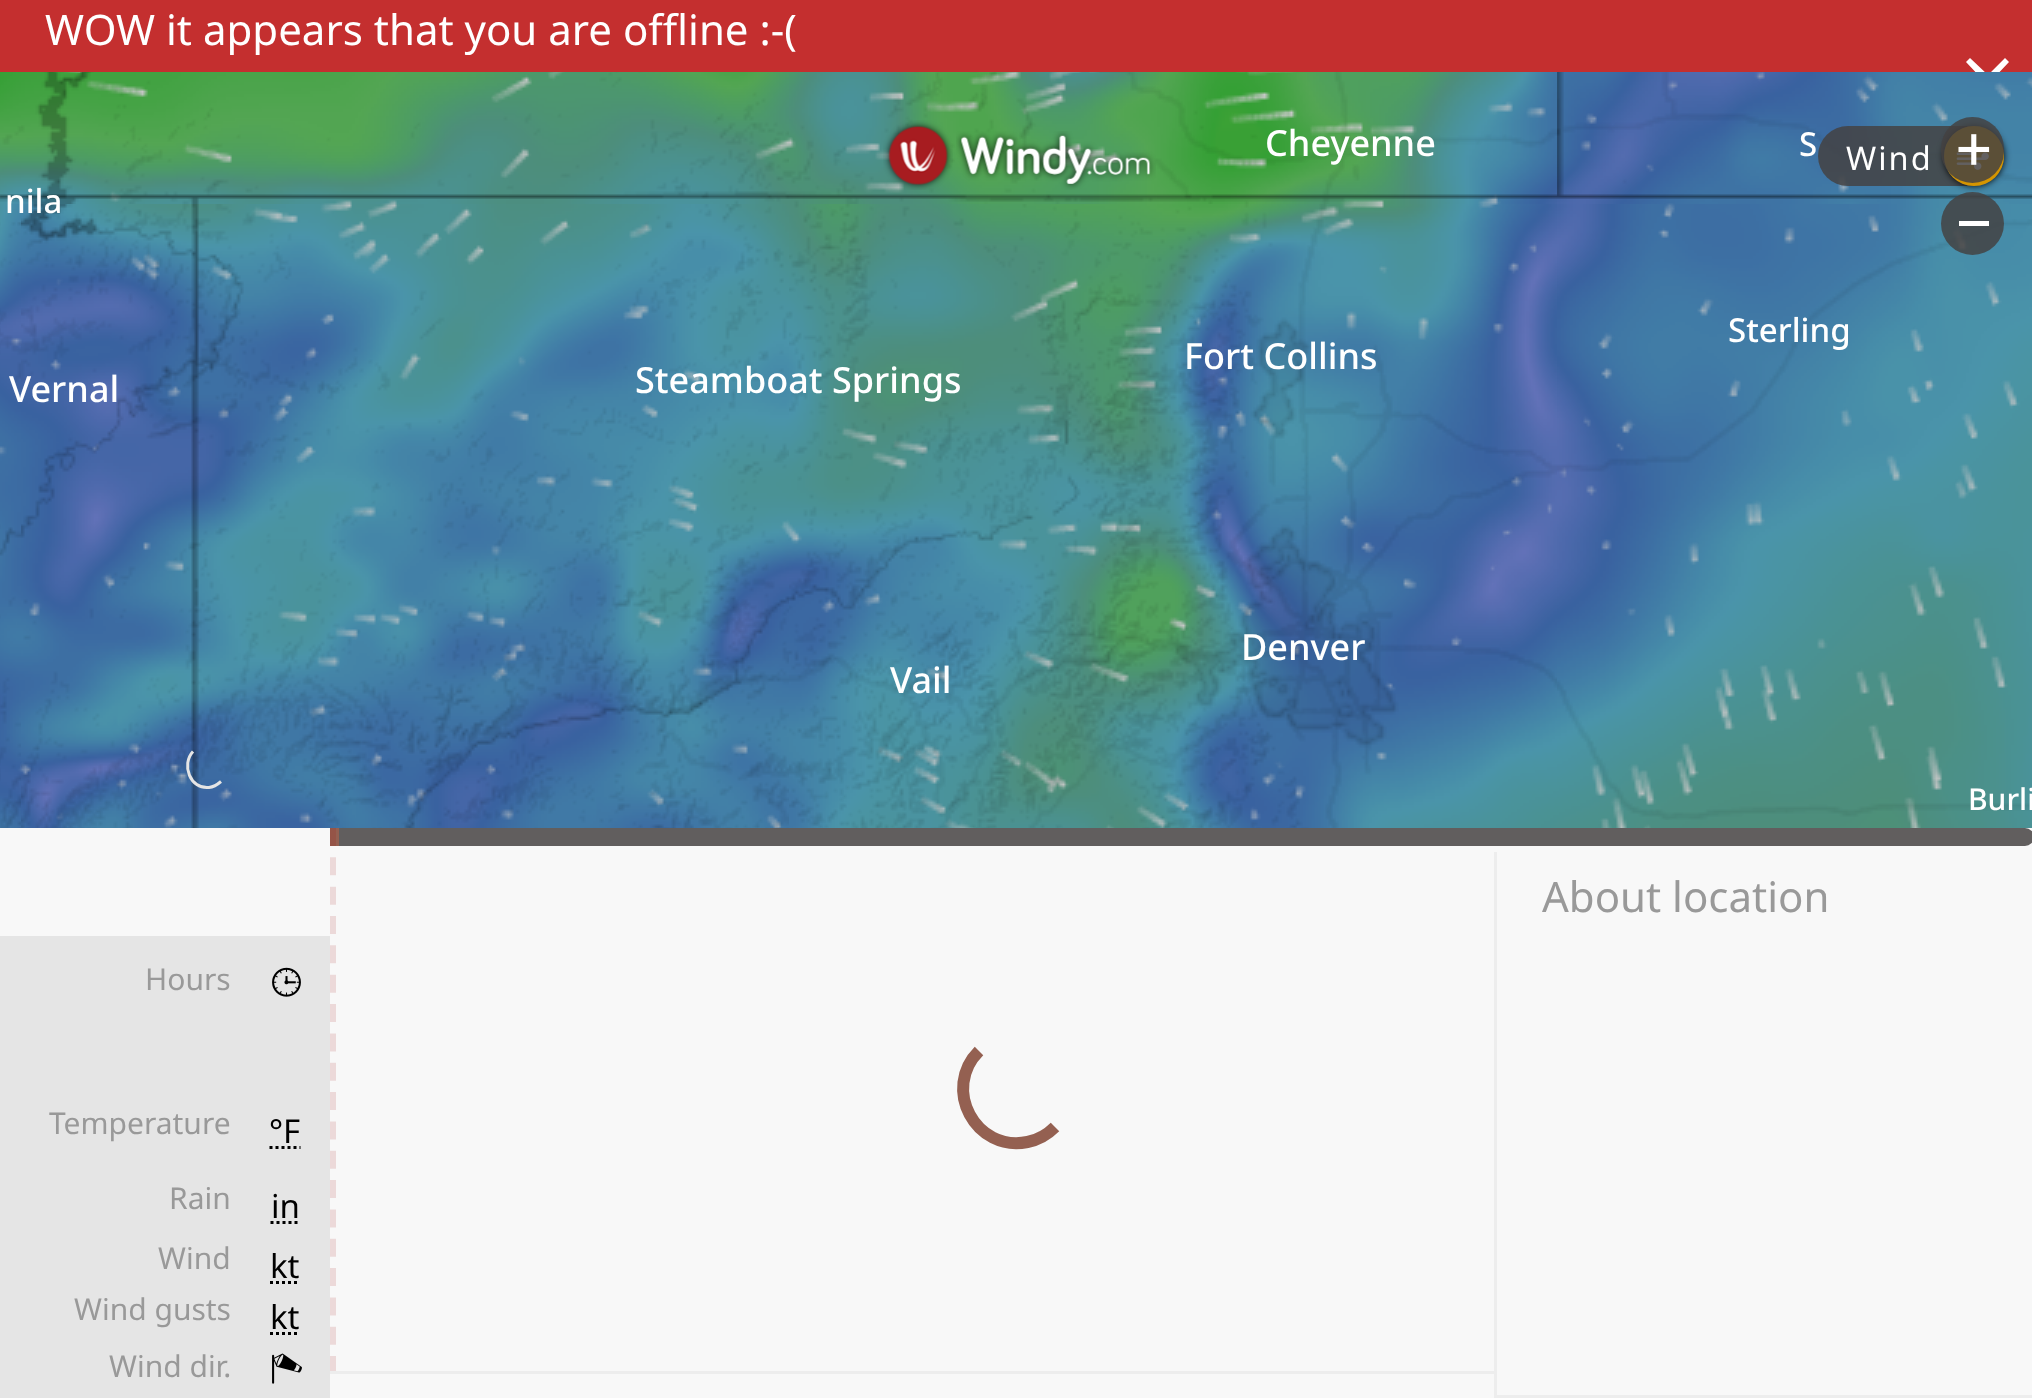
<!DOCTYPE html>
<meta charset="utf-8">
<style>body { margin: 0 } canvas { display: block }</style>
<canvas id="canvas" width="2032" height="1398"></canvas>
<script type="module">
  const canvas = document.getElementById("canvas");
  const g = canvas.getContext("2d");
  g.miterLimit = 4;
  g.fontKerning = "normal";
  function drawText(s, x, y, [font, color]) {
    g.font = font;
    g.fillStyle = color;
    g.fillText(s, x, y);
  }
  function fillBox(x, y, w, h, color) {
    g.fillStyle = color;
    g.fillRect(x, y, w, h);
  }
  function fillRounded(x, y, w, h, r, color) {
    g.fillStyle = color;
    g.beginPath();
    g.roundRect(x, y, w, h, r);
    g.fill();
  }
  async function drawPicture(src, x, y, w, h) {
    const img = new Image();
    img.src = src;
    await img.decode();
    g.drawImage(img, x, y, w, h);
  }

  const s1 = ["42px Noto Sans", "#FFFFFF"];
  const s2 = ["500 36px Noto Sans", "#FFFFFF"];
  const s3 = ["500 33px Noto Sans", "#FFFFFF"];
  const s4 = ["500 30px Noto Sans", "#FFFFFF"];
  const s5 = ["32.5px Noto Sans", "#FFFFFF"];
  const s6 = ["42px Noto Sans", "#999999"];
  const s7 = ["30px Noto Sans", "#999999"];
  const s8 = ["33px Noto Sans", "#000000"];

  fillBox(0, 0, 2032, 1398, "#FFFFFF");
  fillBox(0, 0, 2032, 72, "#C42F2F");
  drawText("WOW it appears that you are offline :-(", 45, 45, s1);
  g.save();
  g.beginPath();
  g.rect(0, 0, 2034, 72);
  g.clip();
  g.beginPath();
  g.moveTo(2009, 62);
  g.lineTo(2005, 58);
  g.lineTo(1988, 75);
  g.lineTo(1970, 58);
  g.lineTo(1966, 62);
  g.lineTo(1983, 80);
  g.lineTo(1966, 97);
  g.lineTo(1970, 102);
  g.lineTo(1988, 84);
  g.lineTo(2005, 102);
  g.lineTo(2009, 97);
  g.lineTo(1992, 80);
  g.closePath();
  g.fill();
  g.restore();
  await drawPicture("pic6.png", 789, 72, 768, 132);
  await drawPicture("pic4.png", 0, 72, 21, 132);
  await drawPicture("pic5.png", 21, 72, 768, 132);
  await drawPicture("pic7.png", 1557, 72, 475, 132);
  await drawPicture("pic8.png", 0, 204, 21, 624);
  await drawPicture("pic9.png", 21, 204, 768, 624);
  await drawPicture("pic10.png", 789, 204, 768, 624);
  await drawPicture("pic11.png", 1557, 204, 475, 624);
  await drawPicture("pic12.png", 0, 72, 2032, 756);
  await drawPicture("pic15.png", 789, 72, 768, 132);
  await drawPicture("pic1.png", 883, 120, 70, 70);
  await drawPicture("pic2.png", 956, 131, 200, 59);
  await drawPicture("pic16.png", 1557, 72, 475, 127);
  fillRounded(1818, 126, 186, 60, 30, "rgba(68, 65, 65, 0.84)");
  g.save();
  g.beginPath();
  g.moveTo(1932, 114);
  g.lineTo(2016, 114);
  g.lineTo(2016, 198);
  g.lineTo(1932, 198);
  g.closePath();
  g.moveTo(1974, 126);
  g.bezierCurveTo(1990.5, 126, 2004, 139.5, 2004, 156);
  g.bezierCurveTo(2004, 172.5, 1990.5, 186, 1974, 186);
  g.bezierCurveTo(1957.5, 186, 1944, 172.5, 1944, 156);
  g.bezierCurveTo(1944, 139.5, 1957.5, 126, 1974, 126);
  g.closePath();
  g.clip("evenodd");
  g.fillStyle = "#000000";
  g.filter = "blur(3.5px)";
  g.beginPath();
  g.roundRect(1944, 126, 60, 60, 30);
  g.fill();
  g.filter = "none";
  g.restore();
  g.fillStyle = "#D49500";
  g.beginPath();
  g.arc(1974, 156, 30, 0, Math.PI * 2);
  g.fill();
  await drawPicture("pic21.png", 1956, 152, 33, 18);
  fillRounded(1941, 117, 63, 66, 31.5, "rgba(68, 65, 65, 0.84)");
  await drawPicture("pic3.png", 1958, 134, 32, 31);
  await drawPicture("pic20.png", 1557, 219, 475, 601);
  g.beginPath();
  g.arc(1972.5, 223.5, 31.5, 0, Math.PI * 2);
  g.fill();
  fillBox(1959, 221, 30, 5, "#FFFFFF");
  await drawPicture("pic13.png", 0, 126, 21, 76);
  await drawPicture("pic14.png", 21, 72, 768, 132);
  await drawPicture("pic17.png", 0, 222, 21, 606);
  await drawPicture("pic18.png", 21, 204, 768, 624);
  await drawPicture("pic19.png", 789, 204, 768, 624);
  drawText("Cheyenne", 1265, 156, s2);
  drawText("S", 1799, 156, s3);
  drawText("nila", 5, 213, s3);
  drawText("Vernal", 9, 402, s2);
  drawText("Fort Collins", 1184, 369, s2);
  drawText("Steamboat Springs", 635, 393, s2);
  drawText("Denver", 1241, 660, s2);
  drawText("Vail", 890, 693, s2);
  drawText("Sterling", 1728, 342, s3);
  drawText("Burli", 1968, 810, s4);
  g.letterSpacing = "2px";
  drawText("Wind", 1846, 170, s5);
  g.beginPath();
  g.moveTo(221, 781.5);
  g.bezierCurveTo(217.5, 784.5, 213.5, 787, 209, 787.5);
  g.bezierCurveTo(190, 789.5, 181, 764.5, 193, 751.5);
  g.strokeStyle = "#E5E5E5";
  g.lineWidth = 3;
  g.stroke();
  fillBox(0, 828, 2032, 570, "#F8F8F8");
  fillRounded(330, 828, 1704, 18, 9, "#615E5E");
  fillBox(330, 828, 9, 18, "#946051");
  g.beginPath();
  g.moveTo(333, 828);
  g.lineTo(333, 1374);
  g.strokeStyle = "rgba(157, 3, 0, 0.12)";
  g.lineWidth = 6;
  g.setLineDash([18, 11.34]);
  g.stroke();
  fillBox(1494, 1395, 538, 3, "#EDEDED");
  fillBox(1494, 852, 3, 546, "#EDEDED");
  fillBox(330, 1371, 1167, 3, "#EDEDED");
  g.letterSpacing = "0px";
  drawText("About location", 1542, 912, s6);
  fillBox(0, 936, 330, 462, "#E5E5E5");
  drawText("Hours", 145, 990, s7);
  await drawPicture("pic22.png", 272, 967, 29, 30);
  drawText("Temperature", 49, 1134, s7);
  drawText("°F", 269, 1143, s8);
  g.beginPath();
  g.moveTo(269.5, 1147.5);
  g.lineTo(300.5, 1147.5);
  g.strokeStyle = "#000000";
  g.lineWidth = 3;
  g.setLineDash([3, 3]);
  g.stroke();
  drawText("Rain", 169, 1209, s7);
  drawText("in", 271, 1218, s8);
  g.beginPath();
  g.moveTo(270.5, 1222.5);
  g.lineTo(299.5, 1222.5);
  g.stroke();
  drawText("Wind", 158, 1269, s7);
  drawText("kt", 270, 1278, s8);
  g.beginPath();
  g.moveTo(270, 1282.5);
  g.lineTo(300, 1282.5);
  g.stroke();
  drawText("Wind gusts", 74, 1320, s7);
  drawText("kt", 270, 1329, s8);
  g.beginPath();
  g.moveTo(270, 1333.5);
  g.lineTo(300, 1333.5);
  g.stroke();
  drawText("Wind dir.", 109, 1377, s7);
  await drawPicture("pic23.png", 272, 1353, 30, 31);
  g.beginPath();
  g.moveTo(1055, 1127);
  g.bezierCurveTo(1047.5, 1134.5, 1038, 1140, 1027.5, 1142);
  g.bezierCurveTo(975.5, 1152.5, 941.5, 1088.5, 979, 1051);
  g.strokeStyle = "#946051";
  g.lineWidth = 12;
  g.setLineDash([]);
  g.stroke();
</script>
